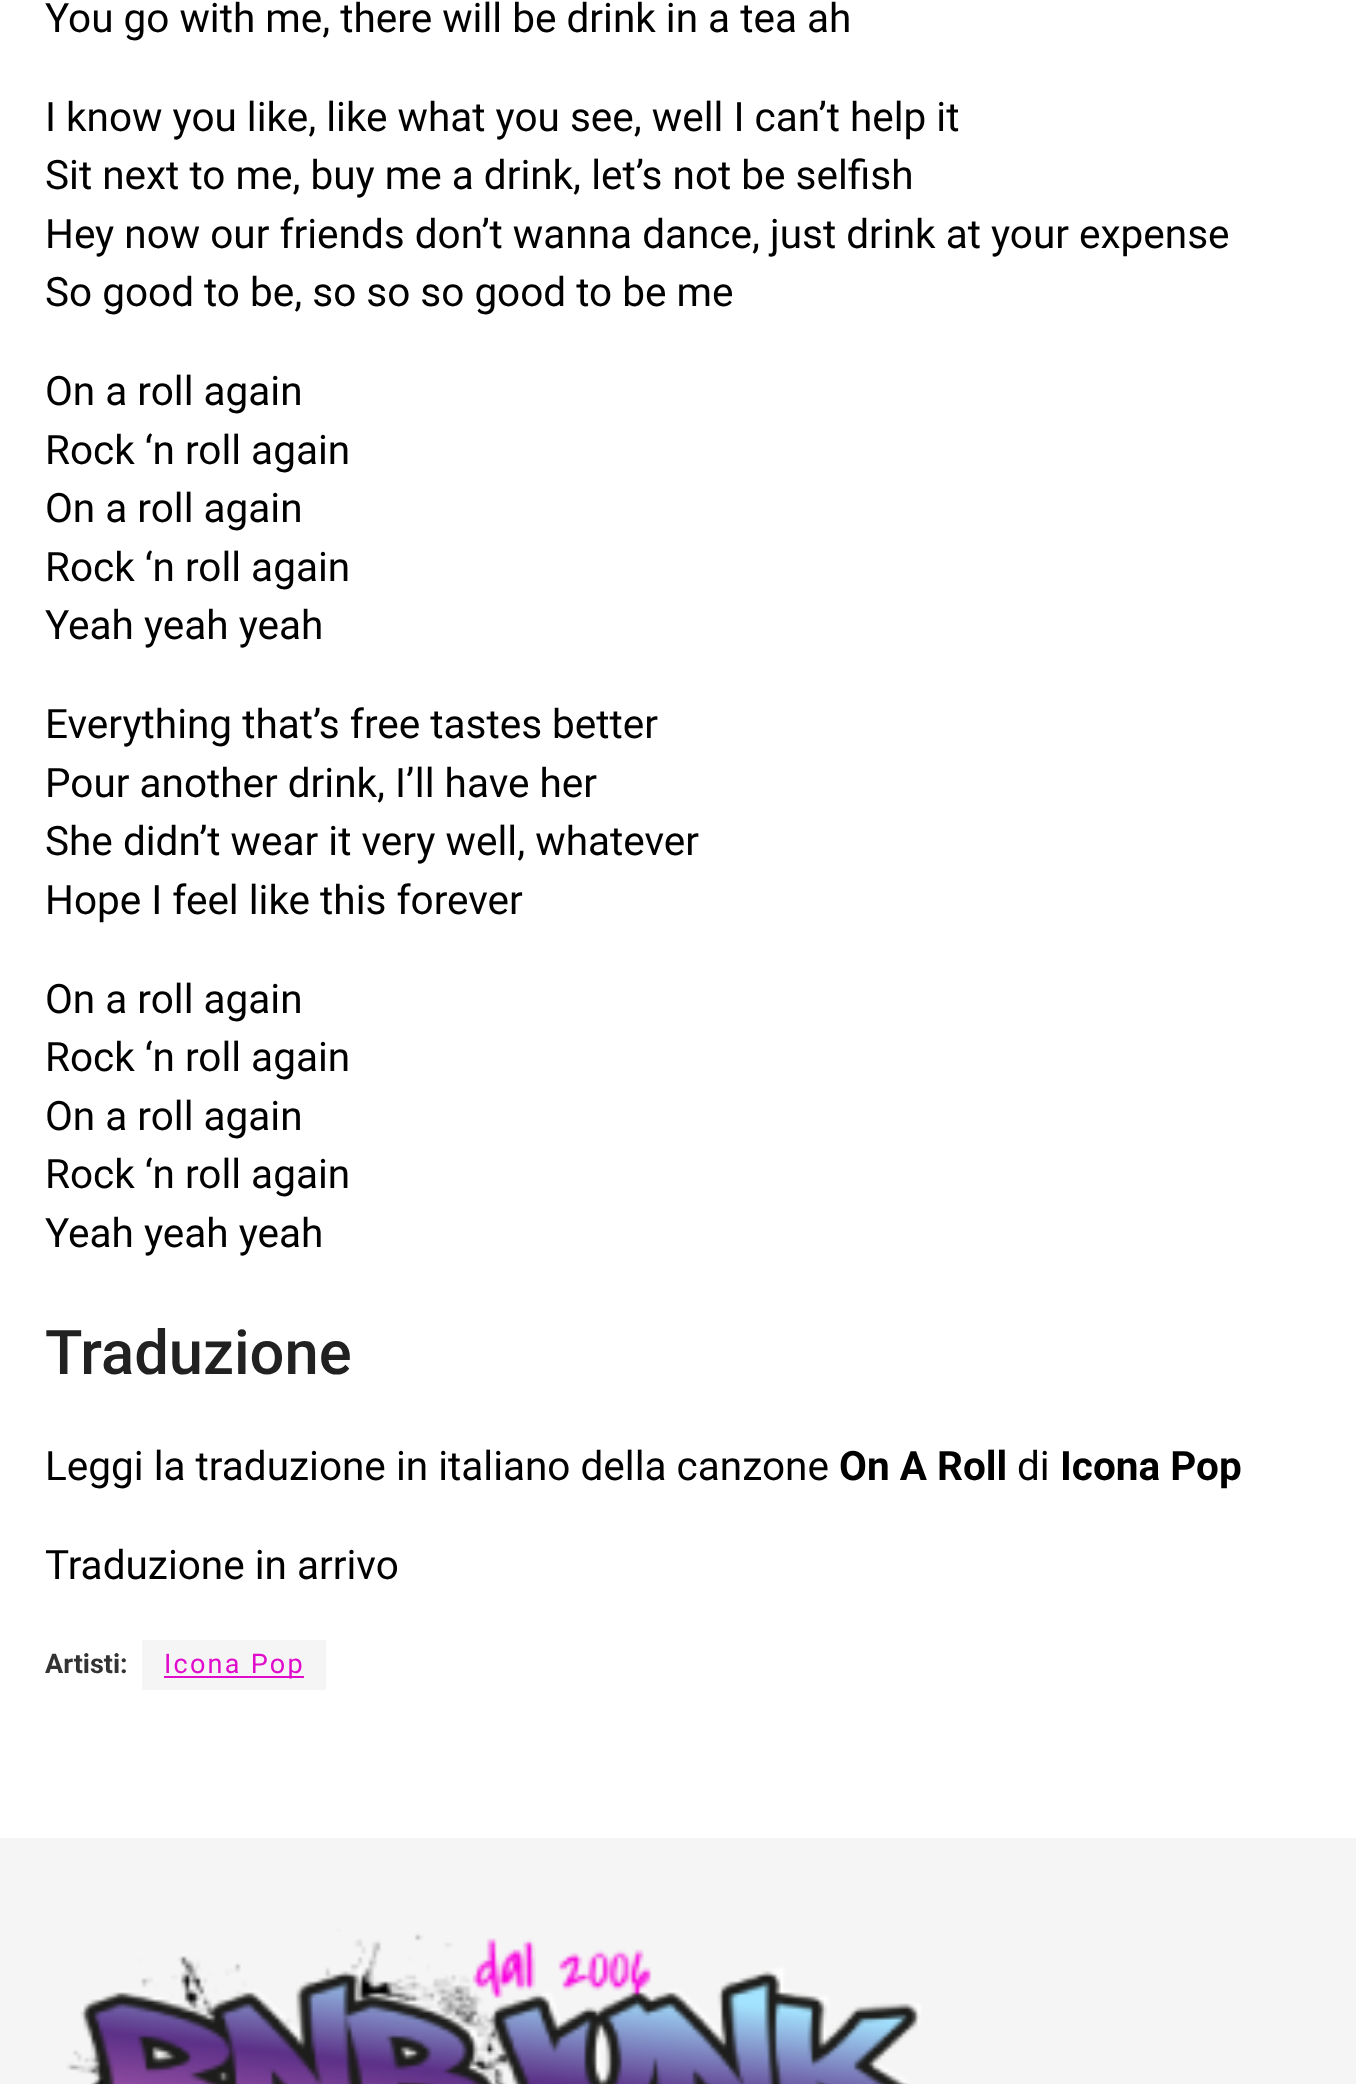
<!DOCTYPE html>
<meta charset="utf-8">
<style>body { margin: 0 } canvas { display: block }</style>
<canvas id="canvas" width="1356" height="2084"></canvas>
<script type="module">
  const canvas = document.getElementById("canvas");
  const g = canvas.getContext("2d");
  g.miterLimit = 4;
  g.fontKerning = "normal";
  function drawText(s, x, y, [font, color]) {
    g.font = font;
    g.fillStyle = color;
    g.fillText(s, x, y);
  }
  function fillBox(x, y, w, h, color) {
    g.fillStyle = color;
    g.fillRect(x, y, w, h);
  }
  async function drawPicture(src, x, y, w, h) {
    const img = new Image();
    img.src = src;
    await img.decode();
    g.drawImage(img, x, y, w, h);
  }

  const s1 = ["40.5px Roboto", "#000000"];
  const s2 = ["500 61.5px Roboto", "#212121"];
  const s3 = ["bold 40.5px Roboto", "#000000"];
  const s4 = ["bold 27px Roboto", "#333333"];
  const s5 = ["27px Roboto", "#E00BCB"];

  fillBox(0, 0, 1356, 2084, "#FFFFFF");
  drawText("You go with me, there will be drink in a tea ah", 45, 32, s1);
  drawText("I know you like, like what you see, well I can’t help it", 45, 131, s1);
  drawText("Sit next to me, buy me a drink, let’s not be selfish", 45, 189, s1);
  drawText("Hey now our friends don’t wanna dance, just drink at your expense", 45, 248, s1);
  drawText("So good to be, so so so good to be me", 45, 306, s1);
  drawText("On a roll again", 45, 405, s1);
  drawText("Rock ‘n roll again", 45, 464, s1);
  drawText("On a roll again", 45, 522, s1);
  drawText("Rock ‘n roll again", 45, 581, s1);
  drawText("Yeah yeah yeah", 45, 639, s1);
  drawText("Everything that’s free tastes better", 45, 738, s1);
  drawText("Pour another drink, I’ll have her", 45, 797, s1);
  drawText("She didn’t wear it very well, whatever", 45, 855, s1);
  drawText("Hope I feel like this forever", 45, 914, s1);
  drawText("On a roll again", 45, 1013, s1);
  drawText("Rock ‘n roll again", 45, 1071, s1);
  drawText("On a roll again", 45, 1130, s1);
  drawText("Rock ‘n roll again", 45, 1188, s1);
  drawText("Yeah yeah yeah", 45, 1247, s1);
  drawText("Traduzione", 45, 1374, s2);
  drawText("Leggi la traduzione in italiano della canzone", 45, 1480, s1);
  drawText("On A Roll", 839, 1480, s3);
  drawText("di", 1017, 1480, s1);
  drawText("Icona Pop", 1060, 1480, s3);
  drawText("Traduzione in arrivo", 45, 1579, s1);
  drawText("Artisti:", 45, 1673, s4);
  fillBox(142, 1640, 184, 50, "#F5F5F5");
  fillBox(164, 1676, 140, 2, "#E00BCB");
  g.letterSpacing = "2.25px";
  drawText("Icona Pop", 164, 1673, s5);
  fillBox(0, 1838, 1356, 246, "#F5F5F5");
  await drawPicture("pic1.png", 66, 1929, 856, 155);
</script>
